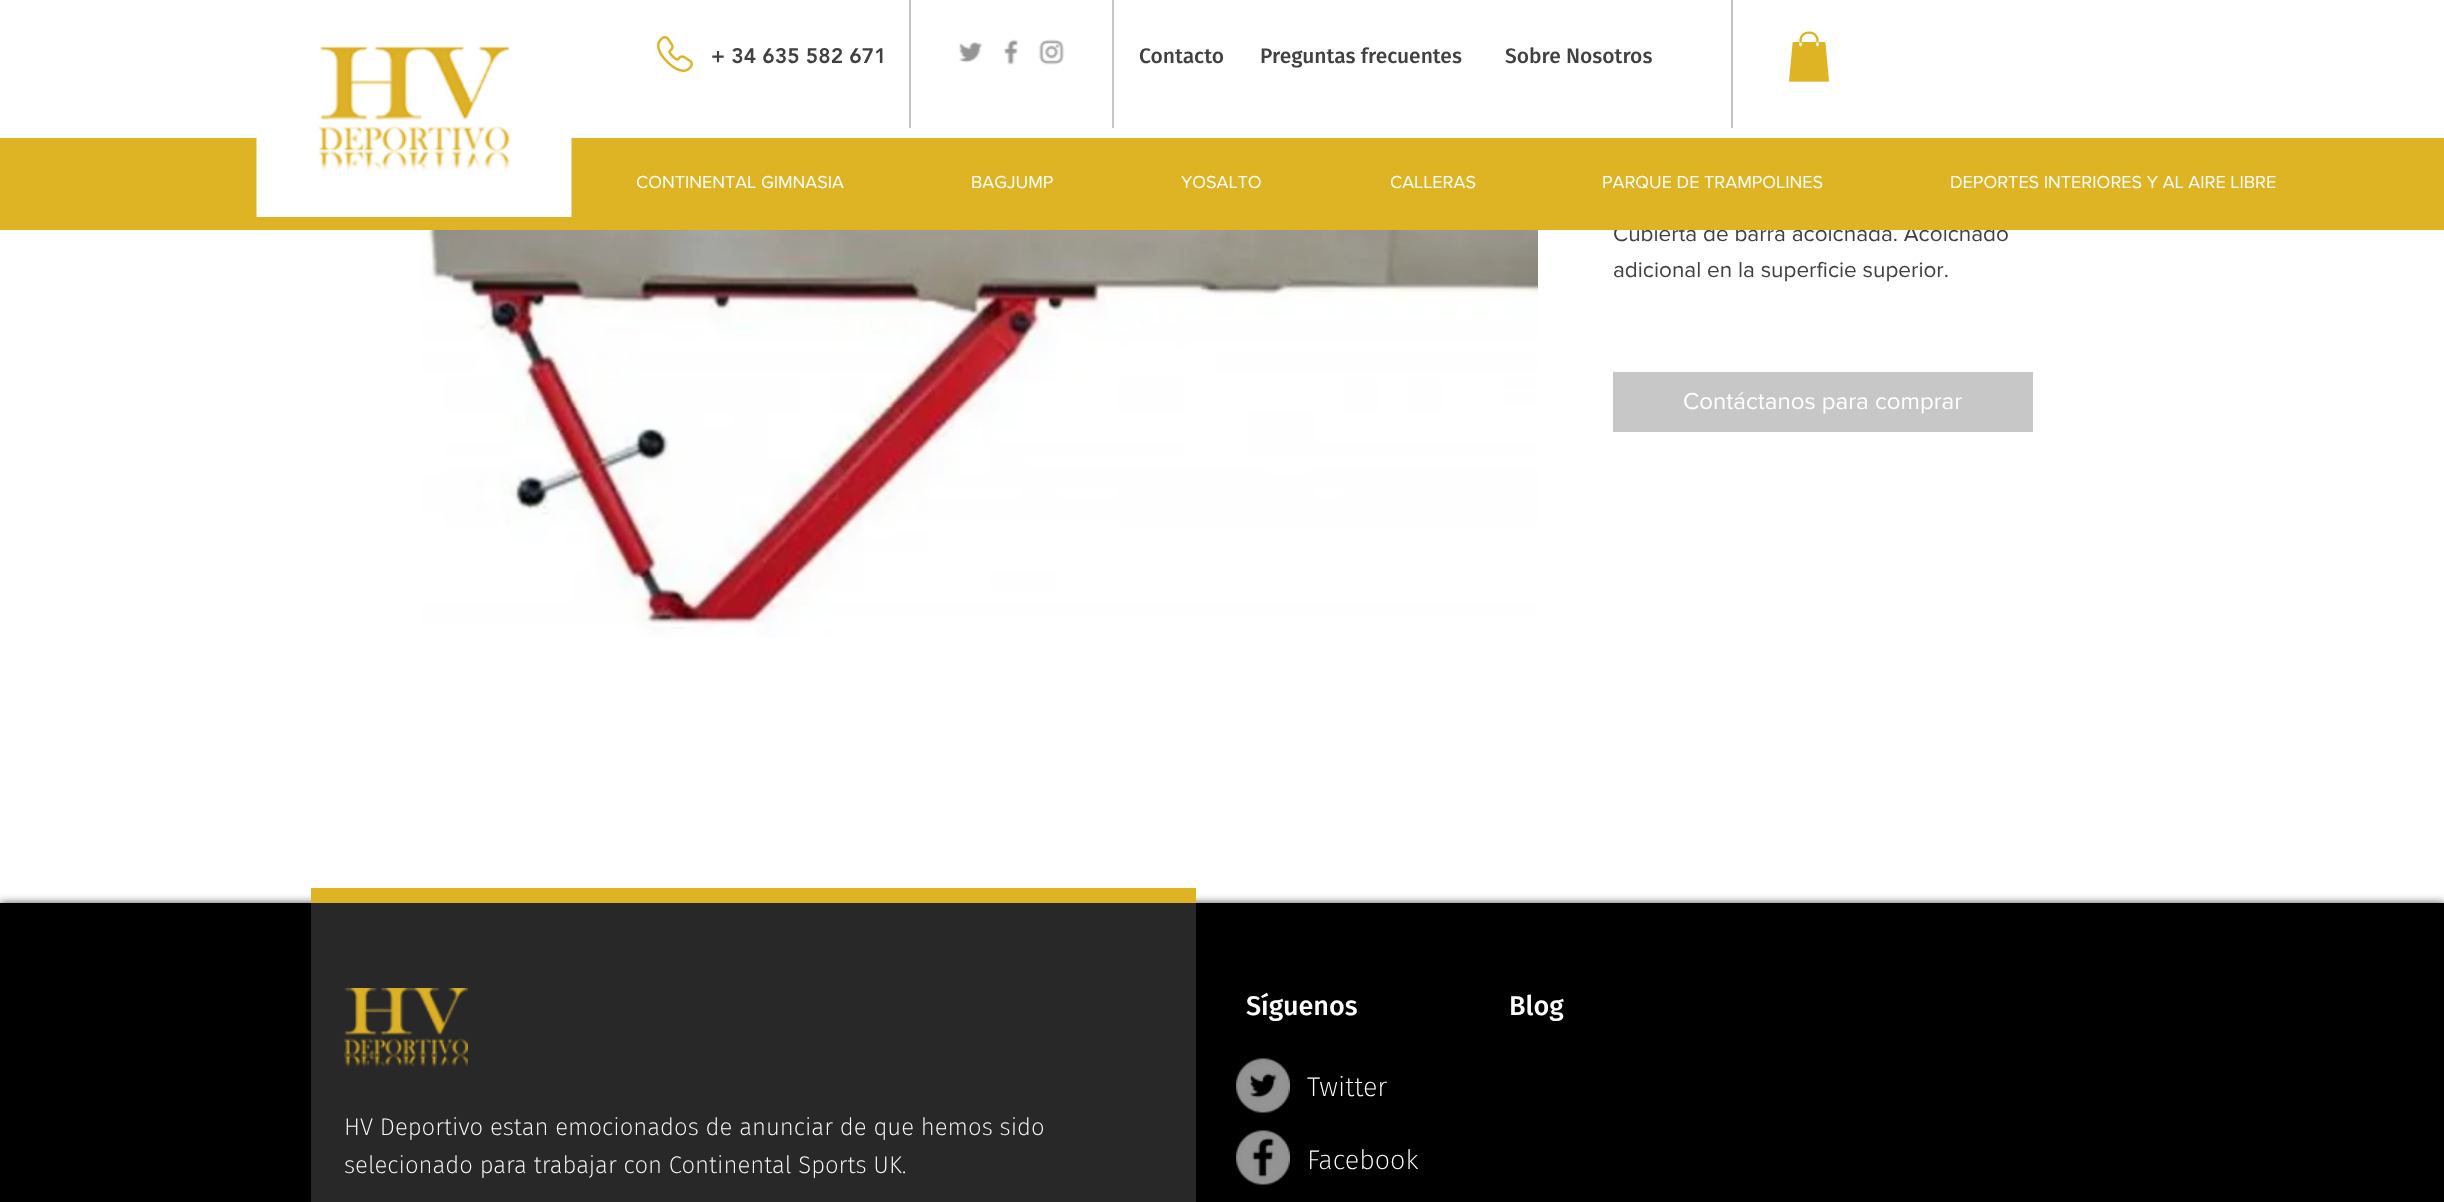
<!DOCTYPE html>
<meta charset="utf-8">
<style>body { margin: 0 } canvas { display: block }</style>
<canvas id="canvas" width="2444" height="1202"></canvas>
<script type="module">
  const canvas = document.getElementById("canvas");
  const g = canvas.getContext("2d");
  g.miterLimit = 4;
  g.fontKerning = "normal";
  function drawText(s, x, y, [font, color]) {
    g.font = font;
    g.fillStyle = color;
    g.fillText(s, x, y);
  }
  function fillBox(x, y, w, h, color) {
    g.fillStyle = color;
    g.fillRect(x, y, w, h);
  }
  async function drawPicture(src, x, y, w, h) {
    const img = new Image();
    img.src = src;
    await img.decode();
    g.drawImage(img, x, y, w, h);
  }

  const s1 = ["22.5px 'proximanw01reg'", "#414141"];
  const s2 = ["900 21px 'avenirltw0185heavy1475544'", "#414141"];
  const s3 = ["500 21px Fira Sans", "#414141"];
  const s4 = ["18px 'proximanw01reg'", "#FFFFFF"];
  const s5 = ["24px 'proximanw01reg'", "#FFFFFF"];
  const s6 = ["200 24px Fira Sans", "#FFFFFF"];
  const s7 = ["500 27px Fira Sans", "#FFFFFF"];
  const s8 = ["200 27px Fira Sans", "#FFFFFF"];

  fillBox(0, 0, 2444, 1202, "#FFFFFF");
  drawText("Cubierta de barra acolchada. Acolchado", 1613, 241, s1);
  fillBox(0, 138, 2444, 92, "#DEB324");
  await drawPicture("pic1.png", 256, 46, 316, 171);
  await drawPicture("pic2.png", 657, 36, 36, 36);
  drawText("+ 34 635 582 671", 711, 63, s2);
  fillBox(909, 0, 2, 128, "#C5C5C4");
  await drawPicture("pic3.png", 959, 42, 24, 21);
  await drawPicture("pic4.png", 1004, 39, 14, 26);
  await drawPicture("pic5.png", 1038, 39, 27, 26);
  fillBox(1112, 0, 2, 128, "#C5C5C4");
  drawText("Contacto", 1139, 63, s3);
  drawText("Preguntas frecuentes", 1260, 63, s3);
  drawText("Sobre Nosotros", 1505, 63, s3);
  fillBox(1731, 0, 2, 128, "#C5C5C4");
  await drawPicture("pic6.png", 1789, 31, 40, 51);
  drawText("CONTINENTAL GIMNASIA", 636, 188, s4);
  drawText("BAGJUMP", 971, 188, s4);
  drawText("YOSALTO", 1181, 188, s4);
  drawText("CALLERAS", 1390, 188, s4);
  drawText("PARQUE DE TRAMPOLINES", 1602, 188, s4);
  drawText("DEPORTES INTERIORES Y AL AIRE LIBRE", 1950, 188, s4);
  await drawPicture("pic7.png", 420, 230, 1118, 407);
  drawText("adicional en la superficie superior.", 1613, 277, s1);
  fillBox(1613, 372, 420, 60, "#C7C7C7");
  drawText("Contáctanos para comprar", 1683, 409, s5);
  g.fillStyle = "rgba(0, 0, 0, 0.7)";
  g.filter = "blur(4px)";
  g.beginPath();
  g.rect(0, 903, 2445, 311);
  g.fill();
  g.filter = "none";
  fillBox(0, 903, 2444, 299, "#000000");
  fillBox(311, 903, 885, 299, "#282828");
  fillBox(311, 888, 885, 15, "#DEB324");
  await drawPicture("pic8.png", 343, 988, 125, 80);
  drawText("HV Deportivo estan emocionados de anunciar de que hemos sido", 344, 1135, s6);
  drawText("selecionado para trabajar con Continental Sports UK.", 344, 1173, s6);
  drawText("Síguenos", 1246, 1015, s7);
  drawText("Blog", 1509, 1015, s7);
  await drawPicture("pic9.png", 1236, 1058, 54, 55);
  await drawPicture("pic10.png", 1236, 1130, 54, 55);
  drawText("Twitter", 1307, 1096, s8);
  drawText("Facebook", 1307, 1169, s8);
</script>
